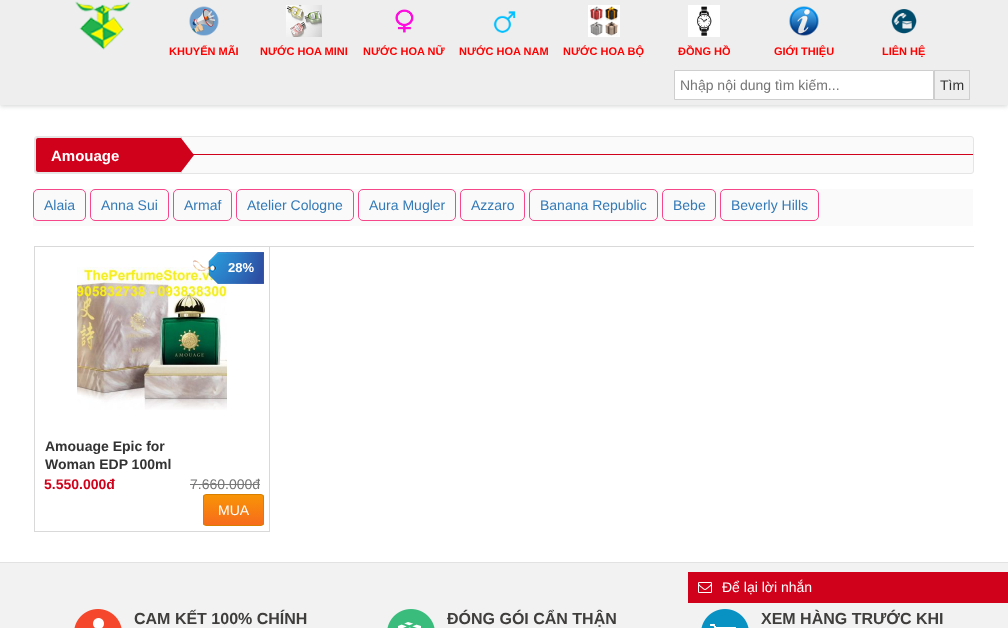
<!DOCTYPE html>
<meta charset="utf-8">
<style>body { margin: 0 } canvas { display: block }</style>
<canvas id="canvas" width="1008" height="628"></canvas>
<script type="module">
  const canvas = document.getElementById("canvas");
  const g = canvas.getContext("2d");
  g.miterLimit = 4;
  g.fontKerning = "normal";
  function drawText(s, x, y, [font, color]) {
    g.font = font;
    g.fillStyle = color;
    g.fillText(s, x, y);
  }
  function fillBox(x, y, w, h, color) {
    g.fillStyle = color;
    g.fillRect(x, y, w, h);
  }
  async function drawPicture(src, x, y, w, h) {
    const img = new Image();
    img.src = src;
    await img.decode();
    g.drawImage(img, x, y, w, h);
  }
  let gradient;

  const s1 = ["bold 11px Liberation Sans", "#FF0000"];
  const s2 = ["14px Liberation Sans", "#757575"];
  const s3 = ["14px Liberation Sans", "#333333"];
  const s4 = ["bold 15px Liberation Sans", "#FFFFFF"];
  const s5 = ["14px Liberation Sans", "#337AB7"];
  const s6 = ["bold 13px Liberation Sans", "#FFFFFF"];
  const s7 = ["bold 14px Liberation Sans", "#333333"];
  const s8 = ["bold 14px Liberation Sans", "#D0021B"];
  const s9 = ["14px Liberation Sans", "#FFFFFF"];
  const s10 = ["bold 16px Liberation Sans", "#3F3E3D"];

  fillBox(0, 0, 1008, 628, "#FFFFFF");
  g.fillStyle = "#D1D3D4";
  g.filter = "blur(2.5px)";
  g.beginPath();
  g.rect(0, 1, 1008, 105);
  g.fill();
  g.filter = "none";
  fillBox(0, 0, 1008, 105, "#EEEEEE");
  await drawPicture("pic1.png", 75, 1, 56, 49);
  await drawPicture("pic2.png", 189, 6, 30, 30);
  drawText("KHUYẾN MÃI", 169, 55, s1);
  await drawPicture("pic3.png", 286, 5, 36, 32);
  drawText("NƯỚC HOA MINI", 260, 55, s1);
  await drawPicture("pic4.png", 395, 9, 19, 24);
  drawText("NƯỚC HOA NỮ", 363, 55, s1);
  await drawPicture("pic5.png", 493, 11, 23, 22);
  drawText("NƯỚC HOA NAM", 459, 55, s1);
  await drawPicture("pic6.png", 588, 5, 32, 32);
  drawText("NƯỚC HOA BỘ", 563, 55, s1);
  await drawPicture("pic7.png", 688, 5, 32, 32);
  drawText("ĐỒNG HỒ", 678, 55, s1);
  await drawPicture("pic8.png", 789, 6, 30, 30);
  drawText("GIỚI THIỆU", 774, 55, s1);
  await drawPicture("pic9.png", 891, 9, 26, 25);
  drawText("LIÊN HỆ", 882, 55, s1);
  g.fillStyle = "#FFFFFF";
  g.beginPath();
  g.rect(674.5, 70.5, 259, 29);
  g.fill();
  g.strokeStyle = "#CECECE";
  g.stroke();
  drawText("Nhập nội dung tìm kiếm...", 680, 90, s2);
  g.strokeRect(934.5, 70.5, 35, 29);
  drawText("Tìm", 940, 90, s3);
  g.fillStyle = "#FAFAFA";
  g.beginPath();
  g.roundRect(34.5, 136.5, 939, 37, 2.5);
  g.fill();
  g.strokeStyle = "#E5E5E5";
  g.stroke();
  g.fillStyle = "#D0021B";
  g.beginPath();
  g.roundRect(35.5, 137.5, 146, 35, [2.5, 0, 0, 2.5]);
  g.fill();
  g.stroke();
  drawText("Amouage", 51, 161, s4);
  fillBox(193, 154, 780, 1, "#D0021B");
  g.beginPath();
  g.moveTo(181, 172);
  g.lineTo(181, 138);
  g.lineTo(194, 155);
  g.closePath();
  g.fill();
  fillBox(33, 189, 940, 37, "#FAFAFA");
  g.beginPath();
  g.roundRect(33.5, 189.5, 52, 31, 4.5);
  g.strokeStyle = "#F6478B";
  g.stroke();
  drawText("Alaia", 44, 210, s5);
  g.beginPath();
  g.roundRect(90.5, 189.5, 78, 31, 4.5);
  g.stroke();
  drawText("Anna Sui", 101, 210, s5);
  g.beginPath();
  g.roundRect(173.5, 189.5, 58, 31, 4.5);
  g.stroke();
  drawText("Armaf", 184, 210, s5);
  g.beginPath();
  g.roundRect(236.5, 189.5, 117, 31, 4.5);
  g.stroke();
  drawText("Atelier Cologne", 247, 210, s5);
  g.beginPath();
  g.roundRect(358.5, 189.5, 97, 31, 4.5);
  g.stroke();
  drawText("Aura Mugler", 369, 210, s5);
  g.beginPath();
  g.roundRect(460.5, 189.5, 64, 31, 4.5);
  g.stroke();
  drawText("Azzaro", 471, 210, s5);
  g.beginPath();
  g.roundRect(529.5, 189.5, 128, 31, 4.5);
  g.stroke();
  drawText("Banana Republic", 540, 210, s5);
  g.beginPath();
  g.roundRect(662.5, 189.5, 53, 31, 4.5);
  g.stroke();
  drawText("Bebe", 673, 210, s5);
  g.beginPath();
  g.roundRect(720.5, 189.5, 98, 31, 4.5);
  g.stroke();
  drawText("Beverly Hills", 731, 210, s5);
  fillBox(34, 246, 940, 1, "#D9D9D9");
  fillBox(34, 246, 1, 286, "#D9D9D9");
  fillBox(269, 247, 1, 285, "#D9D9D9");
  fillBox(35, 531, 235, 1, "#D9D9D9");
  await drawPicture("pic10.png", 77, 267, 150, 143);
  await drawPicture("pic11.png", 193, 252, 71, 32);
  drawText("28%", 228, 272, s6);
  drawText("Amouage Epic for", 45, 451, s7);
  drawText("Woman EDP 100ml", 45, 469, s7);
  drawText("5.550.000đ", 44, 489, s8);
  drawText("7.660.000đ", 190, 489, s2);
  fillBox(190, 484, 70, 1, "#797979");
  g.save();
  g.beginPath();
  g.roundRect(203, 494, 61, 32, 3);
  g.clip();
  gradient = g.createLinearGradient(234, 495, 234, 525);
  gradient.addColorStop(0, "#F89406");
  gradient.addColorStop(1, "#F76B1C");
  g.fillStyle = gradient;
  g.fillRect(203, 495, 61, 30);
  g.restore();
  g.beginPath();
  g.roundRect(203.5, 494.5, 60, 31, 2.5);
  g.strokeStyle = "#D97F00";
  g.stroke();
  drawText("MUA", 218, 515, s9);
  fillBox(0, 563, 1008, 65, "#F2F2F2");
  fillBox(688, 572, 320, 31, "#D0021B");
  await drawPicture("pic12.png", 698, 582, 14, 11);
  drawText("Để lại lời nhắn", 722, 592, s9);
  fillBox(0, 562, 1008, 1, "#E2E2E2");
  await drawPicture("pic13.png", 74, 609, 48, 19);
  drawText("CAM KẾT 100% CHÍNH", 134, 624, s10);
  await drawPicture("pic14.png", 387, 609, 48, 19);
  drawText("ĐÓNG GÓI CẨN THẬN", 447, 624, s10);
  await drawPicture("pic15.png", 701, 609, 48, 19);
  drawText("XEM HÀNG TRƯỚC KHI", 761, 624, s10);
</script>
